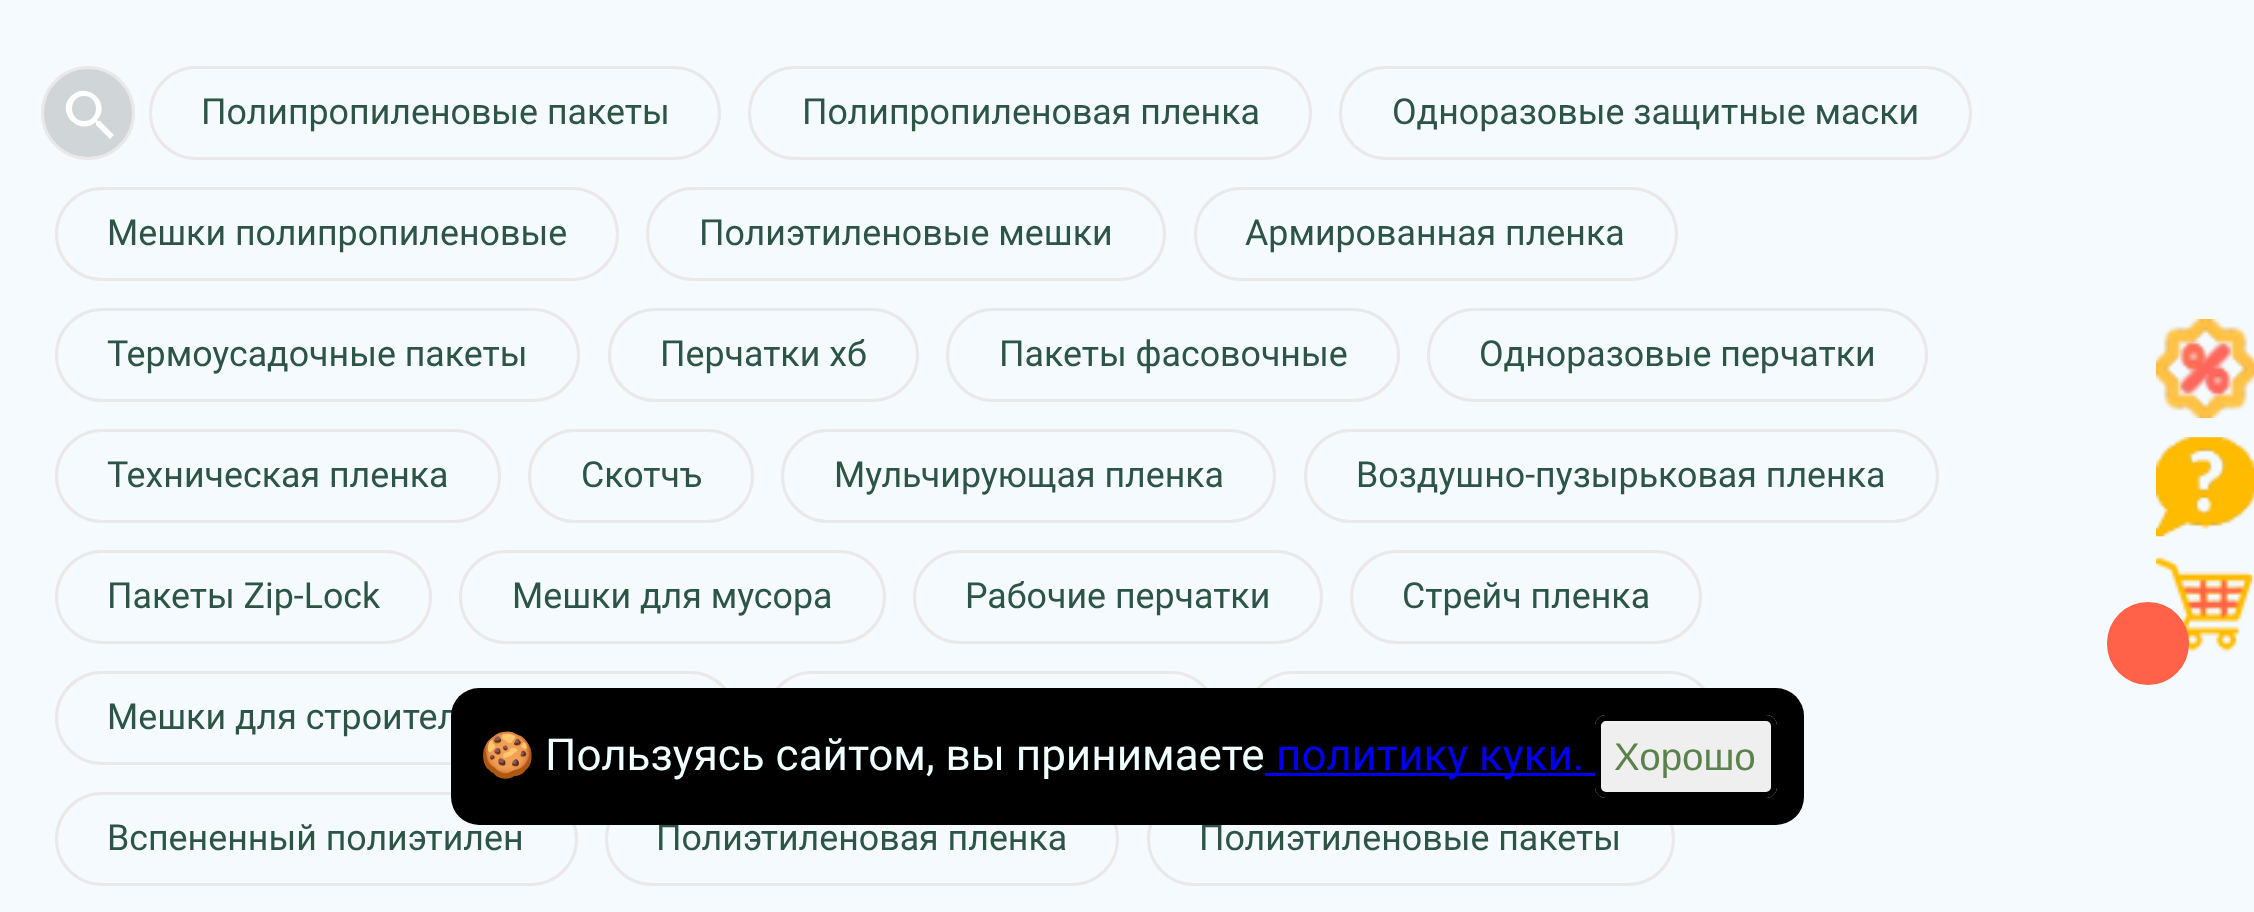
<!DOCTYPE html>
<meta charset="utf-8">
<style>body { margin: 0 } canvas { display: block }</style>
<canvas id="canvas" width="2254" height="912"></canvas>
<script type="module">
  const canvas = document.getElementById("canvas");
  const g = canvas.getContext("2d");
  g.miterLimit = 4;
  g.fontKerning = "normal";
  function drawText(s, x, y, [font, color]) {
    g.font = font;
    g.fillStyle = color;
    g.fillText(s, x, y);
  }
  function fillBox(x, y, w, h, color) {
    g.fillStyle = color;
    g.fillRect(x, y, w, h);
  }
  function fillRounded(x, y, w, h, r, color) {
    g.fillStyle = color;
    g.beginPath();
    g.roundRect(x, y, w, h, r);
    g.fill();
  }
  async function drawPicture(src, x, y, w, h) {
    const img = new Image();
    img.src = src;
    await img.decode();
    g.drawImage(img, x, y, w, h);
  }

  const s1 = ["35.75px Roboto", "#2C5546"];
  const s2 = ["44px Noto Color Emoji", "#F0FFFF"];
  const s3 = ["44px Roboto", "#F0FFFF"];
  const s4 = ["44px Roboto", "#0000EE"];
  const s5 = ["38.5px Liberation Sans", "#5B824B"];

  fillBox(0, 0, 2254, 912, "#F5FAFE");
  g.fillStyle = "#D0D5D8";
  g.beginPath();
  g.arc(88, 113, 45.5, 0, Math.PI * 2);
  g.fill();
  g.strokeStyle = "#EAE8E8";
  g.lineWidth = 3;
  g.stroke();
  g.fillStyle = "#FFFFFF";
  g.beginPath();
  g.moveTo(100, 121);
  g.lineTo(98, 121);
  g.lineTo(97, 120);
  g.bezierCurveTo(112, 104, 88, 80, 71, 96);
  g.bezierCurveTo(55, 112, 79, 137, 96, 122);
  g.lineTo(96, 123);
  g.lineTo(96, 125);
  g.lineTo(110, 139);
  g.lineTo(114, 135);
  g.closePath();
  g.moveTo(84, 121);
  g.bezierCurveTo(68, 121, 68, 96, 84, 96);
  g.bezierCurveTo(100, 96, 100, 121, 84, 121);
  g.closePath();
  g.fill();
  g.beginPath();
  g.roundRect(150.5, 67.5, 569, 91, 45.5);
  g.stroke();
  drawText("Полипропиленовые пакеты", 201, 124, s1);
  g.beginPath();
  g.roundRect(749.5, 67.5, 561, 91, 45.5);
  g.stroke();
  drawText("Полипропиленовая пленка", 802, 124, s1);
  g.beginPath();
  g.roundRect(1340.5, 67.5, 630, 91, 45.5);
  g.stroke();
  drawText("Одноразовые защитные маски", 1392, 124, s1);
  g.beginPath();
  g.roundRect(56.5, 188.5, 561, 91, 45.5);
  g.stroke();
  drawText("Мешки полипропиленовые", 107, 245, s1);
  g.beginPath();
  g.roundRect(647.5, 188.5, 517, 91, 45.5);
  g.stroke();
  drawText("Полиэтиленовые мешки", 699, 245, s1);
  g.beginPath();
  g.roundRect(1195.5, 188.5, 481, 91, 45.5);
  g.stroke();
  drawText("Армированная пленка", 1245, 245, s1);
  g.beginPath();
  g.roundRect(56.5, 309.5, 522, 91, 45.5);
  g.stroke();
  drawText("Термоусадочные пакеты", 107, 366, s1);
  g.beginPath();
  g.roundRect(609.5, 309.5, 308, 91, 45.5);
  g.stroke();
  drawText("Перчатки хб", 660, 366, s1);
  g.beginPath();
  g.roundRect(947.5, 309.5, 451, 91, 45.5);
  g.stroke();
  drawText("Пакеты фасовочные", 999, 366, s1);
  g.beginPath();
  g.roundRect(1428.5, 309.5, 498, 91, 45.5);
  g.stroke();
  drawText("Одноразовые перчатки", 1479, 366, s1);
  g.beginPath();
  g.roundRect(56.5, 430.5, 443, 91, 45.5);
  g.stroke();
  drawText("Техническая пленка", 107, 487, s1);
  g.beginPath();
  g.roundRect(529.5, 430.5, 223, 91, 45.5);
  g.stroke();
  drawText("Скотчъ", 581, 487, s1);
  g.beginPath();
  g.roundRect(782.5, 430.5, 492, 91, 45.5);
  g.stroke();
  drawText("Мульчирующая пленка", 834, 487, s1);
  g.beginPath();
  g.roundRect(1305.5, 430.5, 632, 91, 45.5);
  g.stroke();
  drawText("Воздушно-пузырьковая пленка", 1356, 487, s1);
  g.beginPath();
  g.roundRect(56.5, 551.5, 374, 91, 45.5);
  g.stroke();
  drawText("Пакеты Zip-Lock", 107, 608, s1);
  g.beginPath();
  g.roundRect(460.5, 551.5, 424, 91, 45.5);
  g.stroke();
  drawText("Мешки для мусора", 512, 608, s1);
  g.beginPath();
  g.roundRect(914.5, 551.5, 407, 91, 45.5);
  g.stroke();
  drawText("Рабочие перчатки", 965, 608, s1);
  g.beginPath();
  g.roundRect(1351.5, 551.5, 349, 91, 45.5);
  g.stroke();
  drawText("Стрейч пленка", 1402, 608, s1);
  g.beginPath();
  g.roundRect(56.5, 672.5, 679, 91, 45.5);
  g.stroke();
  drawText("Мешки для строител", 107, 729, s1);
  g.beginPath();
  g.roundRect(766.5, 672.5, 450, 91, 45.5);
  g.stroke();
  g.beginPath();
  g.roundRect(1247.5, 672.5, 467, 91, 45.5);
  g.stroke();
  g.beginPath();
  g.roundRect(56.5, 793.5, 520, 91, 45.5);
  g.stroke();
  drawText("Вспененный полиэтилен", 107, 850, s1);
  g.beginPath();
  g.roundRect(606.5, 793.5, 511, 91, 45.5);
  g.stroke();
  drawText("Полиэтиленовая пленка", 656, 850, s1);
  g.beginPath();
  g.roundRect(1148.5, 793.5, 525, 91, 45.5);
  g.stroke();
  drawText("Полиэтиленовые пакеты", 1199, 850, s1);
  await drawPicture("pic1.png", 2156, 319, 98, 99);
  await drawPicture("pic2.png", 2156, 437, 98, 100);
  await drawPicture("pic3.png", 2156, 557, 97, 95);
  fillRounded(2107, 602, 82, 83, 41, "#FF6249");
  fillRounded(451, 688, 1353, 137, 28, "#000000");
  drawText("🍪", 480, 770, s2);
  drawText("Пользуясь сайтом, вы принимаете", 545, 770, s3);
  fillBox(1265, 773, 330, 3, "#0000EE");
  drawText("политику куки.", 1276, 770, s4);
  fillRounded(1595, 715, 182, 83, 11, "#EFEFEF");
  g.fillStyle = "#F2F2F2";
  g.beginPath();
  g.moveTo(1606, 723);
  g.lineTo(1766, 723);
  g.bezierCurveTo(1769, 723, 1771, 726, 1771, 729);
  g.lineTo(1771, 727);
  g.bezierCurveTo(1771, 724, 1768, 721, 1765, 721);
  g.lineTo(1607, 721);
  g.bezierCurveTo(1604, 721, 1602, 723, 1601, 726);
  g.bezierCurveTo(1602, 724, 1604, 723, 1606, 723);
  g.closePath();
  g.fill();
  g.beginPath();
  g.roundRect(1598, 718, 176, 77, 8);
  g.strokeStyle = "#000000";
  g.lineWidth = 6;
  g.stroke();
  drawText("Хорошо", 1614, 770, s5);
</script>
